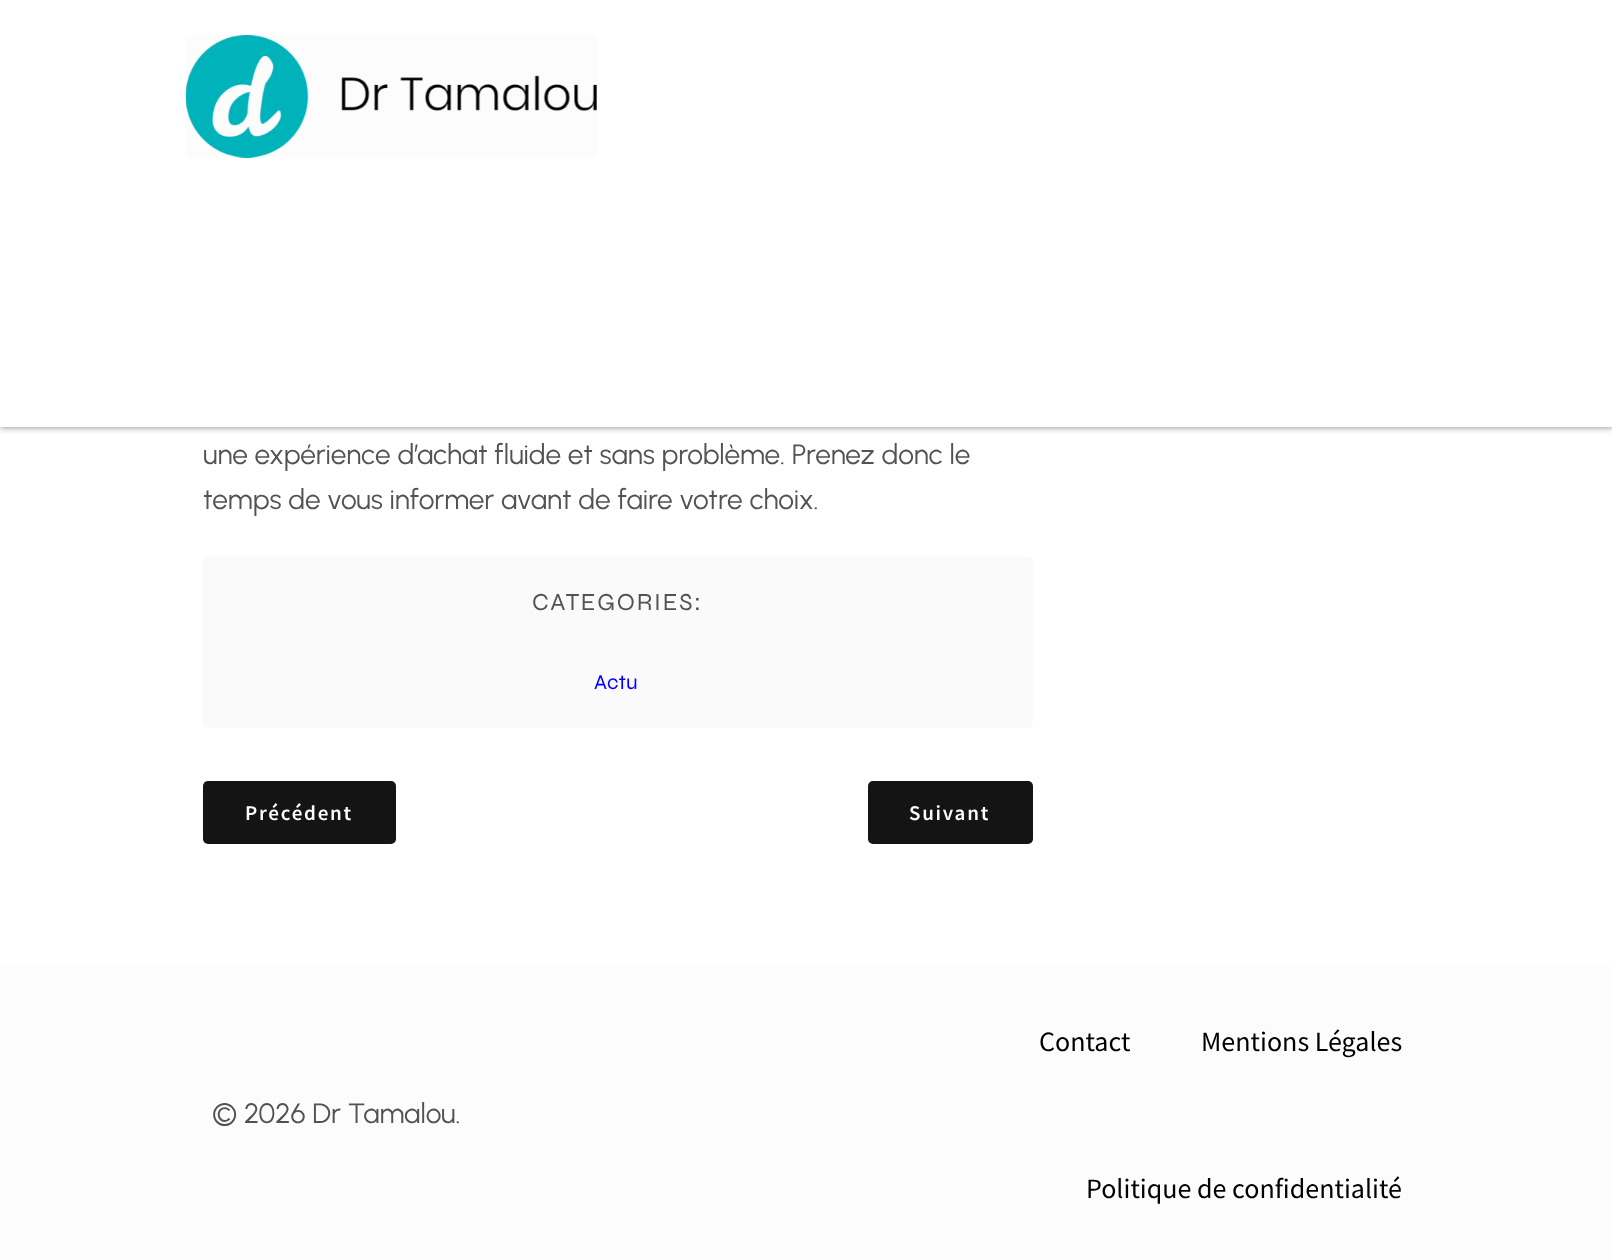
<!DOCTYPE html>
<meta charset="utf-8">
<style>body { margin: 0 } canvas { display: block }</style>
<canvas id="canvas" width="1612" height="1260"></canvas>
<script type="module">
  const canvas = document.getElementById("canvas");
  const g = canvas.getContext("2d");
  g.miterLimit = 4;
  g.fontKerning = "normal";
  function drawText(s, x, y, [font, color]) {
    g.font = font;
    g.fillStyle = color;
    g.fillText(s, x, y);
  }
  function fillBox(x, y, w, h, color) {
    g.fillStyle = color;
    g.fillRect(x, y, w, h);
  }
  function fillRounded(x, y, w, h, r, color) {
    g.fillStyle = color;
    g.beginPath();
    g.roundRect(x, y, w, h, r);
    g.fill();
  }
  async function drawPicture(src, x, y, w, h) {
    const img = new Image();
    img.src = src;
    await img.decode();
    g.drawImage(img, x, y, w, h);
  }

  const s1 = ["28px Urbanist", "#525252"];
  const s2 = ["24.5px Syne", "#525252"];
  const s3 = ["21px Syne", "#0000FF"];
  const s4 = ["600 21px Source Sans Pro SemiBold", "#FCFCFD"];
  const s5 = ["28px Source Sans Pro", "#000000"];

  fillBox(0, 0, 1612, 1260, "#FFFFFF");
  g.fillStyle = "rgba(0, 0, 0, 0.5)";
  g.filter = "blur(3.5px)";
  g.beginPath();
  g.rect(0, 0, 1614, 427);
  g.fill();
  g.filter = "none";
  fillBox(0, 0, 1612, 427, "#FFFFFF");
  fillBox(186, 35, 411, 123, "#FCFCFD");
  await drawPicture("pic1.png", 186, 35, 411, 123);
  drawText("une expérience d’achat fluide et sans problème. Prenez donc le", 203, 464, s1);
  drawText("temps de vous informer avant de faire votre choix.", 203, 509, s1);
  fillRounded(203, 557, 830, 171, 5, "#FAFAFA");
  g.letterSpacing = "1.75px";
  drawText("CATEGORIES:", 532, 610, s2);
  g.letterSpacing = "0px";
  drawText("Actu", 594, 689, s3);
  fillRounded(203, 781, 193, 63, 5, "#141414");
  g.letterSpacing = "1.75px";
  drawText("Précédent", 245, 820, s4);
  fillRounded(868, 781, 165, 63, 5, "#141414");
  drawText("Suivant", 909, 820, s4);
  fillBox(0, 966, 1612, 294, "#FCFCFD");
  g.letterSpacing = "0px";
  drawText("© 2026 Dr Tamalou.", 212, 1123, s1);
  drawText("Contact", 1039, 1051, s5);
  drawText("Mentions Légales", 1201, 1051, s5);
  drawText("Politique de confidentialité", 1086, 1198, s5);
</script>
